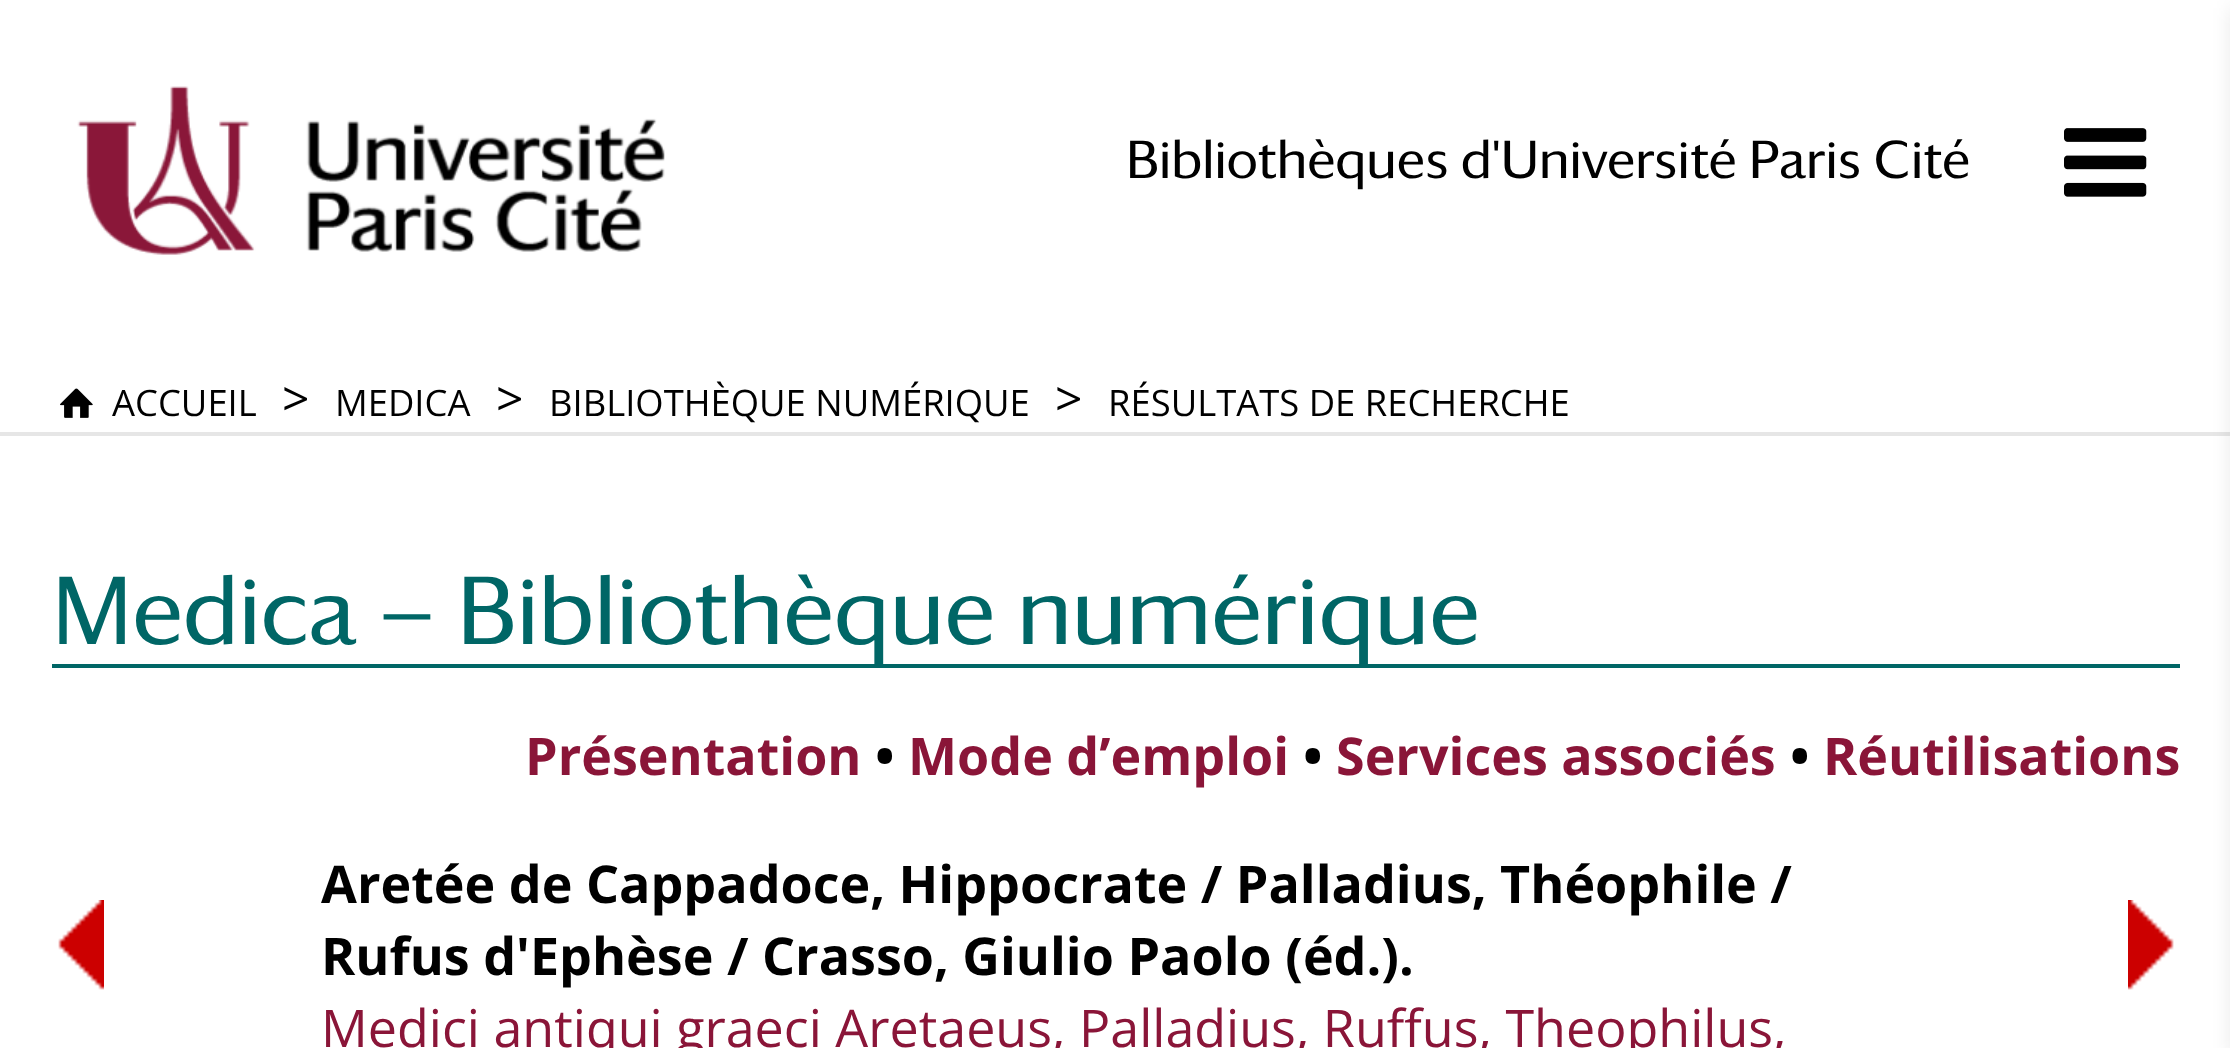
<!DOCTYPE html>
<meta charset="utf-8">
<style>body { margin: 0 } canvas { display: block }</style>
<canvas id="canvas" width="2230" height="1048"></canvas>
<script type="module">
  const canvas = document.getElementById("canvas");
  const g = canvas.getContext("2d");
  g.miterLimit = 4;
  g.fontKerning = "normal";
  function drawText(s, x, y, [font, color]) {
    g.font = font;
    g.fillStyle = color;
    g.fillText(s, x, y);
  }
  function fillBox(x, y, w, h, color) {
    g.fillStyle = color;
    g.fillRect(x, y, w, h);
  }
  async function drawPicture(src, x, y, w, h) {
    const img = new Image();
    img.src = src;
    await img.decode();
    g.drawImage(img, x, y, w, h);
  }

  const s1 = ["52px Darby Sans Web", "#000000"];
  const s2 = ["36.4px Open Sans", "#000000"];
  const s3 = ["48px Open Sans", "#000000"];
  const s4 = ["93.6px Darby Sans Web", "#006666"];
  const s5 = ["bold 52px Open Sans", "#8A1538"];
  const s6 = ["bold 52px Open Sans", "#000000"];
  const s7 = ["52px Open Sans", "#8A1538"];

  fillBox(0, 0, 2230, 1048, "#FFFFFF");
  fillBox(0, 432, 2230, 4, "#E6E6E6");
  await drawPicture("pic1.png", 77, 86, 588, 169);
  drawText("Bibliothèques d'Université Paris Cité", 1126, 178, s1);
  await drawPicture("pic2.png", 2064, 128, 83, 69);
  g.fillStyle = "rgba(0, 0, 0, 0.1)";
  g.filter = "blur(10px)";
  g.beginPath();
  g.rect(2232, 8, 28, 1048);
  g.fill();
  g.filter = "none";
  await drawPicture("pic3.png", 60, 388, 33, 30);
  drawText("ACCUEIL", 112, 416, s2);
  drawText(">", 282, 416, s3);
  drawText("MEDICA", 335, 416, s2);
  drawText(">", 496, 416, s3);
  drawText("BIBLIOTHÈQUE NUMÉRIQUE", 549, 416, s2);
  drawText(">", 1055, 416, s3);
  drawText("RÉSULTATS DE RECHERCHE", 1108, 416, s2);
  fillBox(52, 664, 2128, 4, "#006666");
  drawText("Medica — Bibliothèque numérique", 52, 644, s4);
  drawText("Présentation", 525, 775, s5);
  drawText("•", 875, 775, s6);
  drawText("Mode d’emploi", 908, 775, s5);
  drawText("•", 1303, 775, s6);
  drawText("Services associés", 1336, 775, s5);
  drawText("•", 1790, 775, s6);
  drawText("Réutilisations", 1823, 775, s5);
  await drawPicture("pic4.png", 58, 900, 46, 90);
  drawText("Aretée de Cappadoce, Hippocrate / Palladius, Théophile /", 321, 903, s6);
  drawText("Rufus d'Ephèse / Crasso, Giulio Paolo (éd.).", 321, 975, s6);
  drawText("Medici antiqui graeci Aretaeus, Palladius, Ruffus, Theophilus,", 321, 1047, s7);
  await drawPicture("pic5.png", 2128, 900, 46, 90);
</script>
